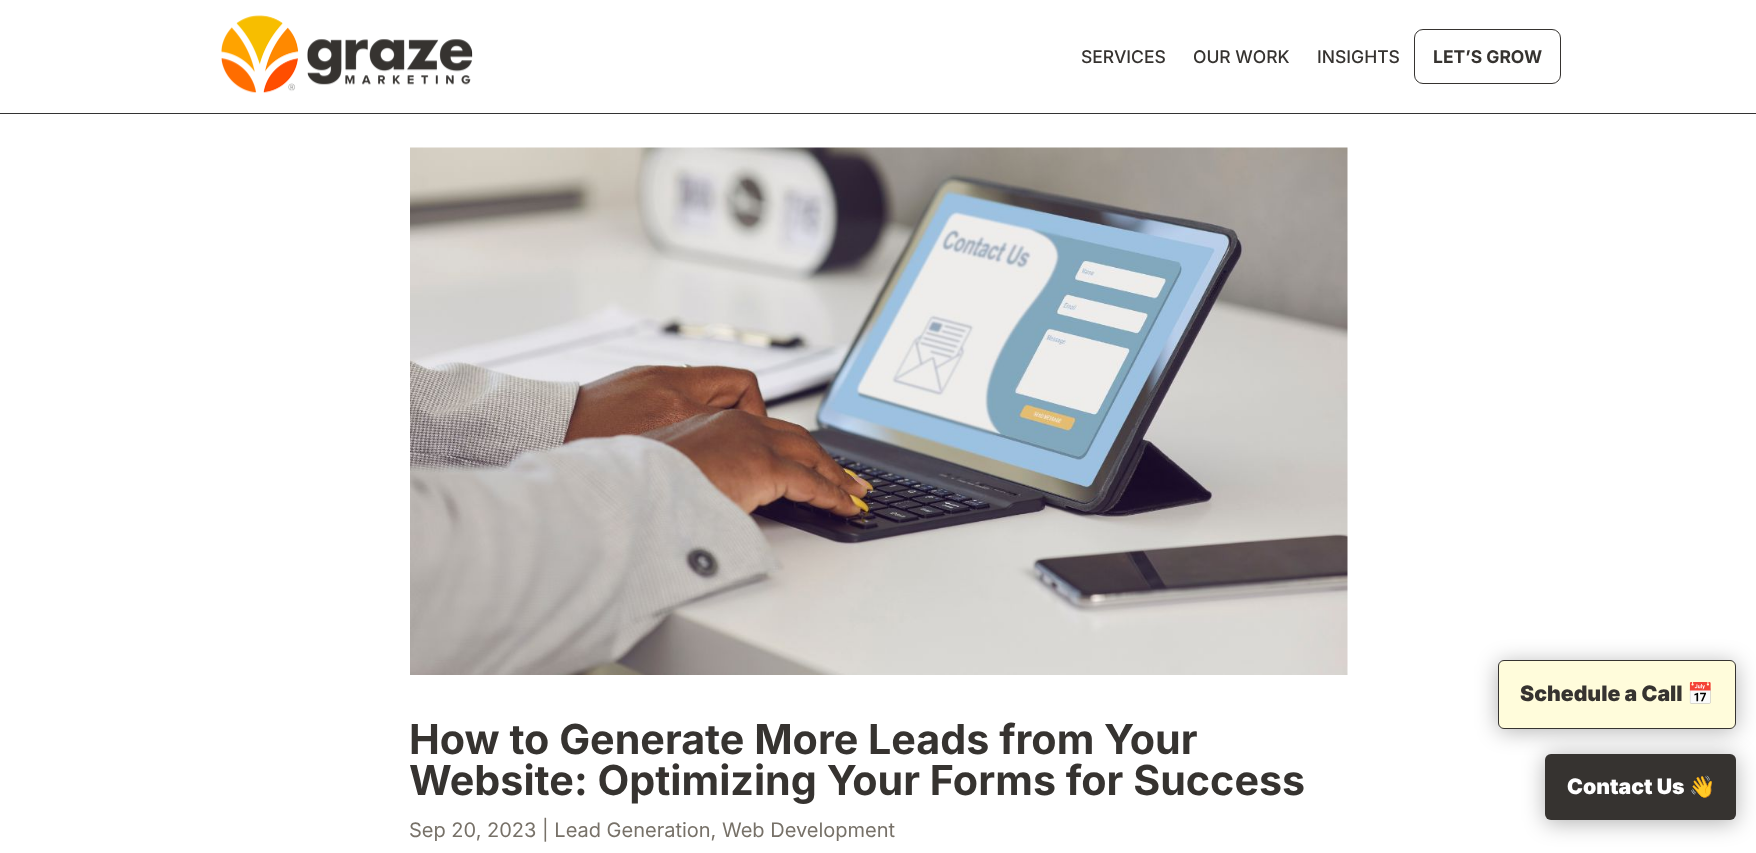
<!DOCTYPE html>
<meta charset="utf-8">
<style>body { margin: 0 } canvas { display: block }</style>
<canvas id="canvas" width="1756" height="853"></canvas>
<script type="module">
  const canvas = document.getElementById("canvas");
  const g = canvas.getContext("2d");
  g.miterLimit = 4;
  g.fontKerning = "normal";
  function drawText(s, x, y, [font, color]) {
    g.font = font;
    g.fillStyle = color;
    g.fillText(s, x, y);
  }
  function fillBox(x, y, w, h, color) {
    g.fillStyle = color;
    g.fillRect(x, y, w, h);
  }
  function fillRounded(x, y, w, h, r, color) {
    g.fillStyle = color;
    g.beginPath();
    g.roundRect(x, y, w, h, r);
    g.fill();
  }
  async function drawPicture(src, x, y, w, h) {
    const img = new Image();
    img.src = src;
    await img.decode();
    g.drawImage(img, x, y, w, h);
  }

  const s1 = ["500 17.5px Inter", "#363330"];
  const s2 = ["bold 17.5px Inter", "#363330"];
  const s3 = ["bold 41.25px Inter", "#363330"];
  const s4 = ["20px Inter", "#777168"];
  const s5 = ["900 21.25px Inter", "#363330"];
  const s6 = ["bold 21.25px Noto Color Emoji", "#363330"];
  const s7 = ["900 21.25px Inter", "#FFFFFF"];
  const s8 = ["bold 21.25px Noto Color Emoji", "#FFFFFF"];

  fillBox(0, 0, 1756, 853, "#FFFFFF");
  fillBox(0, 113, 1756, 1, "#333333");
  await drawPicture("pic1.png", 221, 15, 252, 78);
  drawText("SERVICES", 1081, 63, s1);
  drawText("OUR WORK", 1193, 63, s1);
  drawText("INSIGHTS", 1317, 63, s1);
  g.beginPath();
  g.roundRect(1414.5, 29.5, 146, 54, 8.5);
  g.strokeStyle = "#363330";
  g.stroke();
  drawText("LET’S GROW", 1433, 63, s2);
  await drawPicture("pic2.png", 410, 147, 938, 528);
  drawText("How to Generate More Leads from Your", 409, 754, s3);
  drawText("Website: Optimizing Your Forms for Success", 409, 795, s3);
  drawText("Sep 20, 2023 | Lead Generation, Web Development", 409, 837, s4);
  g.fillStyle = "rgba(0, 0, 0, 0.3)";
  g.filter = "blur(11px)";
  g.beginPath();
  g.roundRect(1498, 663, 238, 68, 6);
  g.fill();
  g.filter = "none";
  g.fillStyle = "#FFFCDB";
  g.beginPath();
  g.roundRect(1498.5, 660.5, 237, 68, 5.5);
  g.fill();
  g.stroke();
  drawText("Schedule a Call", 1520, 701, s5);
  drawText("📅", 1687, 701, s6);
  g.fillStyle = "rgba(0, 0, 0, 0.3)";
  g.filter = "blur(11px)";
  g.beginPath();
  g.roundRect(1545, 756, 191, 67, 6);
  g.fill();
  g.filter = "none";
  fillRounded(1545, 754, 191, 66, 6, "#363330");
  drawText("Contact Us", 1567, 794, s7);
  drawText("👋", 1689, 794, s8);
</script>
